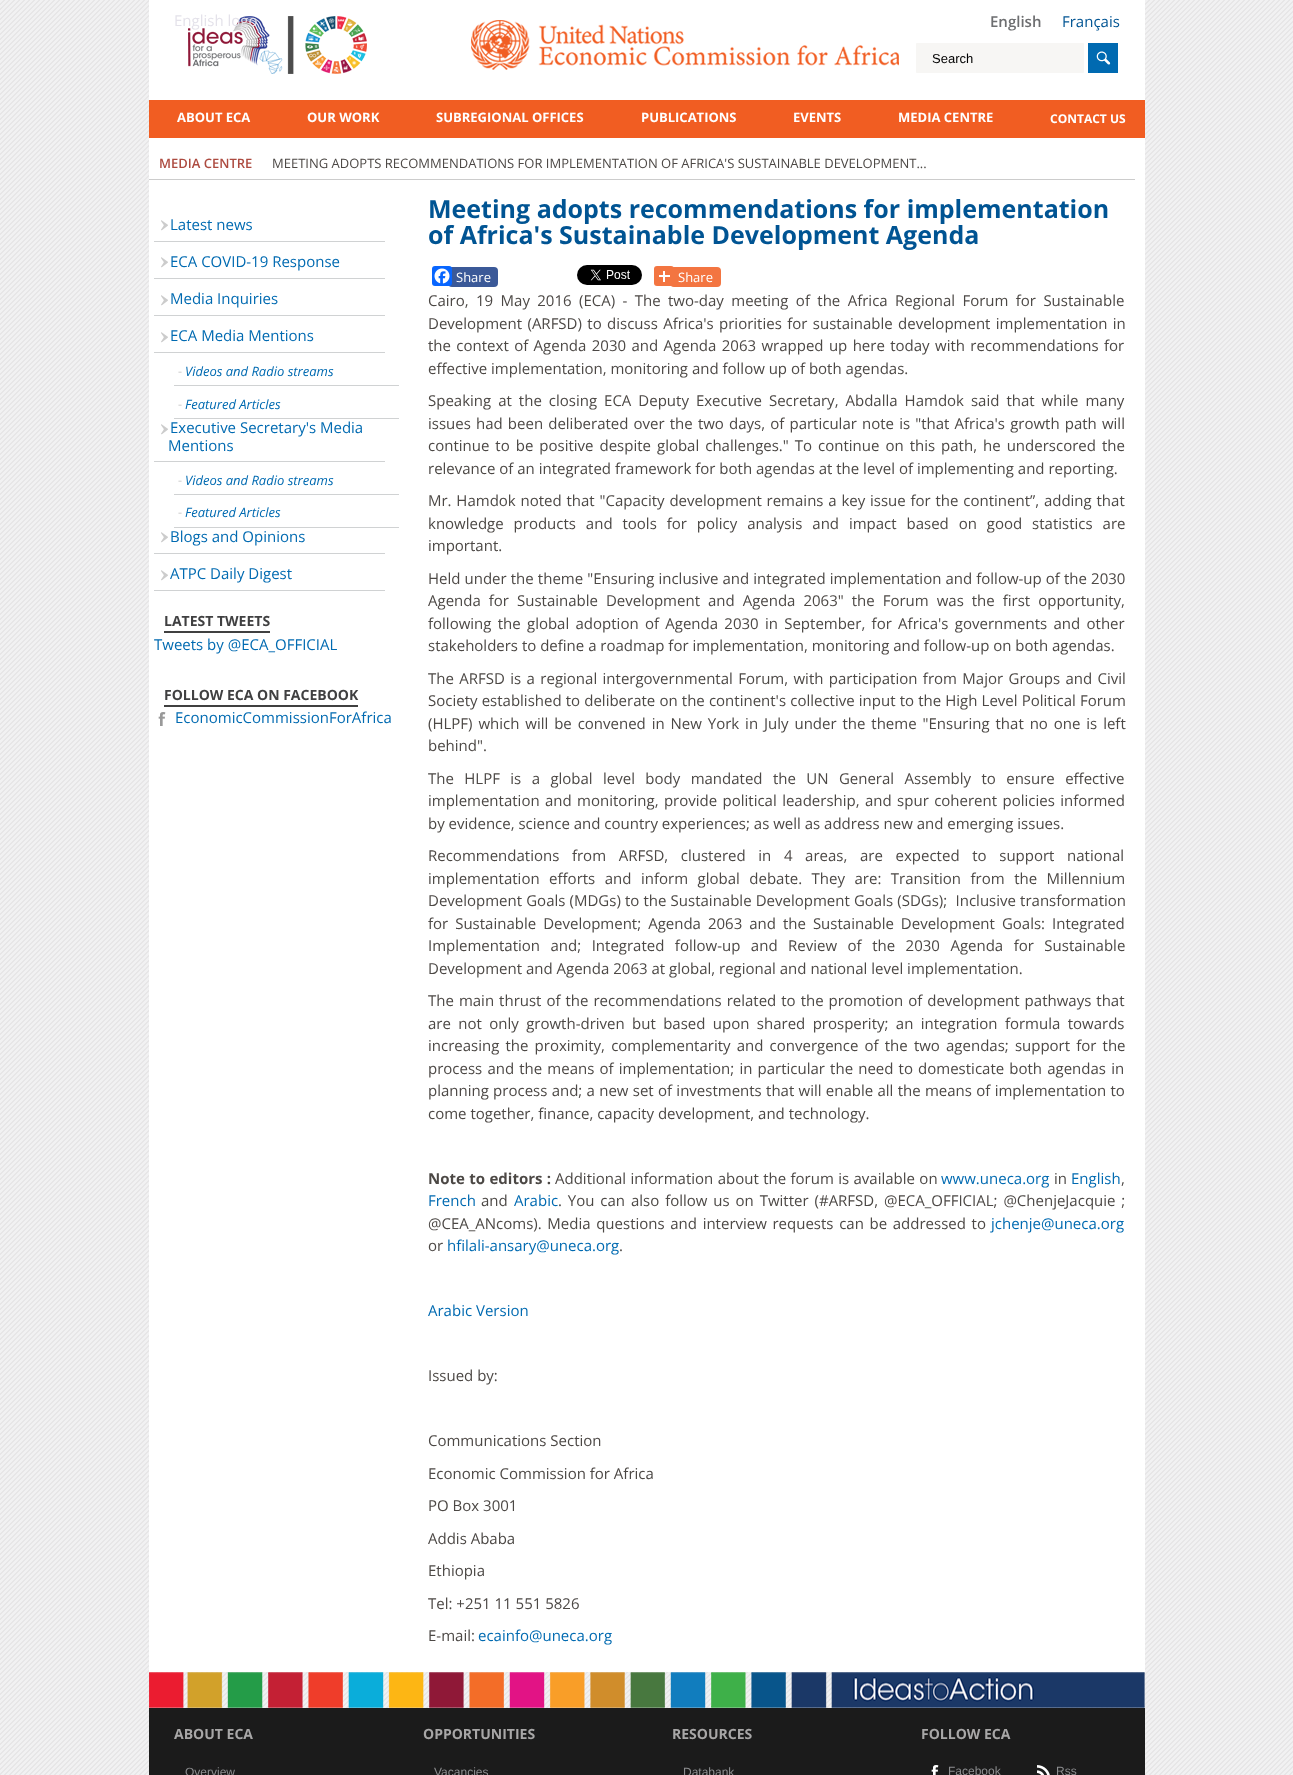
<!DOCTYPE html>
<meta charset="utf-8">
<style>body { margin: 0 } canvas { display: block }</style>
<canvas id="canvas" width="1293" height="1775"></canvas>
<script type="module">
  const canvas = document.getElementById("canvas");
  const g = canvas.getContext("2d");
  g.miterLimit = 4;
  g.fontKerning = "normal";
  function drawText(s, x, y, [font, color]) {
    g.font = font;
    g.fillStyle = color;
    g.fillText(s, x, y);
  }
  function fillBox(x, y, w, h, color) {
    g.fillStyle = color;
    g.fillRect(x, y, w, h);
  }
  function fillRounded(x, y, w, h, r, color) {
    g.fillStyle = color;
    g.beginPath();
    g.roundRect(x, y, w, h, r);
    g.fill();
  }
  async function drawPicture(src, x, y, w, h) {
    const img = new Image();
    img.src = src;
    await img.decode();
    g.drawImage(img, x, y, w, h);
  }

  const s1 = ["15px Open Sans", "#E4E2EA"];
  const s2 = ["600 15px Open Sans", "#6D6E70"];
  const s3 = ["15px Open Sans", "#005493"];
  const s4 = ["13px Liberation Sans", "#000000"];
  const s5 = ["bold 13px Open Sans", "#FFFFFF"];
  const s6 = ["bold 12px Open Sans", "#FFFFFF"];
  const s7 = ["600 13px Open Sans", "#AD4B40"];
  const s8 = ["13px Open Sans", "#4C4845"];
  const s9 = ["12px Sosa", "#CCCCCC"];
  const s10 = ["15px Open Sans", "#006AB1"];
  const s11 = ["12px Liberation Serif", "#CCCCCC"];
  const s12 = ["italic 13px Open Sans", "#006AB1"];
  const s13 = ["bold 14px Open Sans", "#404041"];
  const s14 = ["bold 25px Open Sans", "#005493"];
  const s15 = ["13px Open Sans", "#FFFFFF"];
  const s16 = ["15px Open Sans", "#4C4845"];
  const s17 = ["bold 15px Open Sans", "#4C4845"];
  const s18 = ["bold 14px Open Sans", "#A8A7A7"];
  const s19 = ["12px Liberation Sans", "#8D8E90"];

  fillBox(0, 0, 1293, 1775, "#FFFFFF");
  await drawPicture("pic1.png", 0, 0, 1293, 1775);
  fillBox(149, 0, 996, 100, "#FFFFFF");
  await drawPicture("pic2.png", 188, 16, 711, 58);
  drawText("English logo", 174, 26, s1);
  drawText("English", 990, 27, s2);
  drawText("Français", 1062, 27, s3);
  g.fillStyle = "#F7F6F4";
  g.beginPath();
  g.rect(916.5, 43.5, 167, 29);
  g.fill();
  g.strokeStyle = "#F7F6F4";
  g.stroke();
  drawText("Search", 932, 63, s4);
  await drawPicture("pic3.png", 1088, 43, 30, 30);
  fillBox(149, 100, 996, 38, "#F15D22");
  drawText("ABOUT ECA", 177, 122, s5);
  drawText("OUR WORK", 307, 122, s5);
  drawText("SUBREGIONAL OFFICES", 436, 122, s5);
  drawText("PUBLICATIONS", 641, 122, s5);
  drawText("EVENTS", 793, 122, s5);
  drawText("MEDIA CENTRE", 898, 122, s5);
  drawText("CONTACT US", 1050, 123, s6);
  fillBox(149, 138, 996, 1534, "#FFFFFF");
  fillBox(149, 179, 986, 1, "#CCCCCC");
  drawText("MEDIA CENTRE", 159, 168, s7);
  drawText("MEETING ADOPTS RECOMMENDATIONS FOR IMPLEMENTATION OF AFRICA'S SUSTAINABLE DEVELOPMENT...", 272, 168, s8);
  fillBox(154, 241, 231, 1, "#D0D2D3");
  drawText("›", 158, 228, s9);
  drawText("Latest news", 170, 230, s10);
  fillBox(154, 278, 231, 1, "#D0D2D3");
  drawText("›", 158, 265, s9);
  drawText("ECA COVID-19 Response", 170, 267, s10);
  fillBox(154, 315, 231, 1, "#D0D2D3");
  drawText("›", 158, 303, s9);
  drawText("Media Inquiries", 170, 304, s10);
  fillBox(154, 352, 231, 1, "#D0D2D3");
  drawText("›", 158, 340, s9);
  drawText("ECA Media Mentions", 170, 341, s10);
  fillBox(174, 385, 225, 1, "#D0D2D3");
  drawText("-", 178, 375, s11);
  drawText("Videos and Radio streams", 185, 376, s12);
  fillBox(174, 418, 225, 1, "#D0D2D3");
  drawText("-", 178, 408, s11);
  drawText("Featured Articles", 185, 409, s12);
  fillBox(154, 461, 231, 1, "#D0D2D3");
  drawText("›", 158, 432, s9);
  drawText("Executive Secretary's Media", 170, 433, s10);
  drawText("Mentions", 168, 451, s10);
  fillBox(174, 494, 225, 1, "#D0D2D3");
  drawText("-", 178, 484, s11);
  drawText("Videos and Radio streams", 185, 485, s12);
  fillBox(174, 527, 225, 1, "#D0D2D3");
  drawText("-", 178, 516, s11);
  drawText("Featured Articles", 185, 517, s12);
  fillBox(154, 553, 231, 1, "#D0D2D3");
  drawText("›", 158, 540, s9);
  drawText("Blogs and Opinions", 170, 542, s10);
  fillBox(154, 590, 231, 1, "#D0D2D3");
  drawText("›", 158, 578, s9);
  drawText("ATPC Daily Digest", 170, 579, s10);
  fillBox(164, 631, 106, 2, "#404040");
  drawText("LATEST TWEETS", 164, 626, s13);
  drawText("Tweets by @ECA_OFFICIAL", 154, 650, s10);
  fillBox(164, 705, 194, 2, "#404040");
  drawText("FOLLOW ECA ON FACEBOOK", 164, 700, s13);
  await drawPicture("pic4.png", 158, 712, 8, 14);
  drawText("EconomicCommissionForAfrica", 175, 723, s10);
  drawText("Meeting adopts recommendations for implementation", 428, 218, s14);
  drawText("of Africa's Sustainable Development Agenda", 428, 244, s14);
  fillRounded(448, 267, 50, 20, 4, "#3B5998");
  fillRounded(432, 266, 20, 20, 3, "#0866FF");
  await drawPicture("pic5.png", 434, 268, 16, 16);
  drawText("Share", 456, 282, s15);
  await drawPicture("pic6.png", 577, 265, 65, 20);
  fillRounded(670, 267, 51, 20, 4, "#F37541");
  fillRounded(654, 266, 20, 20, 3, "#F37541");
  fillBox(663, 271, 2, 11, "#FFFFFF");
  fillBox(659, 275, 11, 2, "#FFFFFF");
  drawText("Share", 678, 282, s15);
  g.wordSpacing = "3.5px";
  drawText("Cairo, 19 May 2016 (ECA) - The two-day meeting of the Africa Regional Forum for Sustainable", 428, 306, s16);
  g.wordSpacing = "1.5px";
  drawText("Development (ARFSD) to discuss Africa's priorities for sustainable development implementation in", 428, 329, s16);
  drawText("the context of Agenda 2030 and Agenda 2063 wrapped up here today with recommendations for", 428, 351, s16);
  g.wordSpacing = "0px";
  drawText("effective implementation, monitoring and follow up of both agendas.", 428, 374, s16);
  g.wordSpacing = "3.1px";
  drawText("Speaking at the closing ECA Deputy Executive Secretary, Abdalla Hamdok said that while many", 428, 406, s16);
  g.wordSpacing = "1.25px";
  drawText("issues had been deliberated over the two days, of particular note is \"that Africa's growth path will", 428, 429, s16);
  g.wordSpacing = "2.1px";
  drawText("continue to be positive despite global challenges.\" To continue on this path, he underscored the", 428, 451, s16);
  g.wordSpacing = "0px";
  drawText("relevance of an integrated framework for both agendas at the level of implementing and reporting.", 428, 474, s16);
  g.wordSpacing = "0.9px";
  drawText("Mr. Hamdok noted that \"Capacity development remains a key issue for the continent”, adding that", 428, 506, s16);
  g.wordSpacing = "6px";
  drawText("knowledge products and tools for policy analysis and impact based on good statistics are", 428, 529, s16);
  g.wordSpacing = "0px";
  drawText("important.", 428, 551, s16);
  g.wordSpacing = "0.2px";
  drawText("Held under the theme \"Ensuring inclusive and integrated implementation and follow-up of the 2030", 428, 584, s16);
  g.wordSpacing = "4.1px";
  drawText("Agenda for Sustainable Development and Agenda 2063\" the Forum was the first opportunity,", 428, 606, s16);
  g.wordSpacing = "2.4px";
  drawText("following the global adoption of Agenda 2030 in September, for Africa's governments and other", 428, 629, s16);
  g.wordSpacing = "0px";
  drawText("stakeholders to define a roadmap for implementation, monitoring and follow-up on both agendas.", 428, 651, s16);
  g.wordSpacing = "1.5px";
  drawText("The ARFSD is a regional intergovernmental Forum, with participation from Major Groups and Civil", 428, 684, s16);
  g.wordSpacing = "0.25px";
  drawText("Society established to deliberate on the continent's collective input to the High Level Political Forum", 428, 706, s16);
  g.wordSpacing = "2px";
  drawText("(HLPF) which will be convened in New York in July under the theme \"Ensuring that no one is left", 428, 729, s16);
  g.wordSpacing = "0px";
  drawText("behind\".", 428, 751, s16);
  g.wordSpacing = "6.5px";
  drawText("The HLPF is a global level body mandated the UN General Assembly to ensure effective", 428, 784, s16);
  g.wordSpacing = "1.5px";
  drawText("implementation and monitoring, provide political leadership, and spur coherent policies informed", 428, 806, s16);
  g.wordSpacing = "0px";
  drawText("by evidence, science and country experiences; as well as address new and emerging issues.", 428, 829, s16);
  g.wordSpacing = "8.75px";
  drawText("Recommendations from ARFSD, clustered in 4 areas, are expected to support national", 428, 861, s16);
  g.wordSpacing = "5.6px";
  drawText("implementation efforts and inform global debate. They are: Transition from the Millennium", 428, 884, s16);
  g.wordSpacing = "0.25px";
  drawText("Development Goals (MDGs) to the Sustainable Development Goals (SDGs);  Inclusive transformation", 428, 906, s16);
  g.wordSpacing = "3.1px";
  drawText("for Sustainable Development; Agenda 2063 and the Sustainable Development Goals: Integrated", 428, 929, s16);
  g.wordSpacing = "6.6px";
  drawText("Implementation and; Integrated follow-up and Review of the 2030 Agenda for Sustainable", 428, 951, s16);
  g.wordSpacing = "0px";
  drawText("Development and Agenda 2063 at global, regional and national level implementation.", 428, 974, s16);
  g.wordSpacing = "1.1px";
  drawText("The main thrust of the recommendations related to the promotion of development pathways that", 428, 1006, s16);
  g.wordSpacing = "3.5px";
  drawText("are not only growth-driven but based upon shared prosperity; an integration formula towards", 428, 1029, s16);
  g.wordSpacing = "2.25px";
  drawText("increasing the proximity, complementarity and convergence of the two agendas; support for the", 428, 1051, s16);
  g.wordSpacing = "1.25px";
  drawText("process and the means of implementation; in particular the need to domesticate both agendas in", 428, 1074, s16);
  g.wordSpacing = "0.4px";
  drawText("planning process and; a new set of investments that will enable all the means of implementation to", 428, 1096, s16);
  g.wordSpacing = "0px";
  drawText("come together, finance, capacity development, and technology.", 428, 1119, s16);
  g.wordSpacing = "0.5px";
  drawText("Note to editors :", 428, 1184, s17);
  drawText("Additional information about the forum is available on", 555, 1184, s16);
  g.wordSpacing = "0px";
  drawText("www.uneca.org", 941, 1184, s10);
  drawText("in", 1054, 1184, s16);
  drawText("English", 1071, 1184, s10);
  drawText(",", 1121, 1184, s16);
  drawText("French", 428, 1206, s10);
  drawText("and", 481, 1206, s16);
  drawText("Arabic", 514, 1206, s10);
  g.wordSpacing = "2px";
  drawText(". You can also follow us on Twitter (#ARFSD, @ECA_OFFICIAL; @ChenjeJacquie ;", 558, 1206, s16);
  g.wordSpacing = "1.75px";
  drawText("@CEA_ANcoms). Media questions and interview requests can be addressed to", 428, 1229, s16);
  g.wordSpacing = "0px";
  drawText("jchenje@uneca.org", 991, 1229, s10);
  drawText("or", 428, 1251, s16);
  drawText("hfilali-ansary@uneca.org", 447, 1251, s10);
  drawText(".", 619, 1251, s16);
  drawText("Arabic Version", 428, 1316, s10);
  drawText("Issued by:", 428, 1381, s16);
  drawText("Communications Section", 428, 1446, s16);
  drawText("Economic Commission for Africa", 428, 1479, s16);
  drawText("PO Box 3001", 428, 1511, s16);
  drawText("Addis Ababa", 428, 1544, s16);
  drawText("Ethiopia", 428, 1576, s16);
  drawText("Tel: +251 11 551 5826", 428, 1609, s16);
  drawText("E-mail:", 428, 1641, s16);
  drawText("ecainfo@uneca.org", 478, 1641, s10);
  await drawPicture("pic7.png", 149, 1672, 996, 36);
  fillBox(149, 1708, 996, 67, "#1B1B1B");
  drawText("ABOUT ECA", 174, 1739, s18);
  drawText("Overview", 185, 1776, s19);
  drawText("OPPORTUNITIES", 423, 1739, s18);
  drawText("Vacancies", 434, 1776, s19);
  drawText("RESOURCES", 672, 1739, s18);
  drawText("Databank", 683, 1776, s19);
  drawText("FOLLOW ECA", 921, 1739, s18);
  await drawPicture("pic8.png", 931, 1765, 8, 10);
  drawText("Facebook", 948, 1775, s19);
  await drawPicture("pic9.png", 1037, 1765, 13, 10);
  drawText("Rss", 1056, 1775, s19);
</script>
